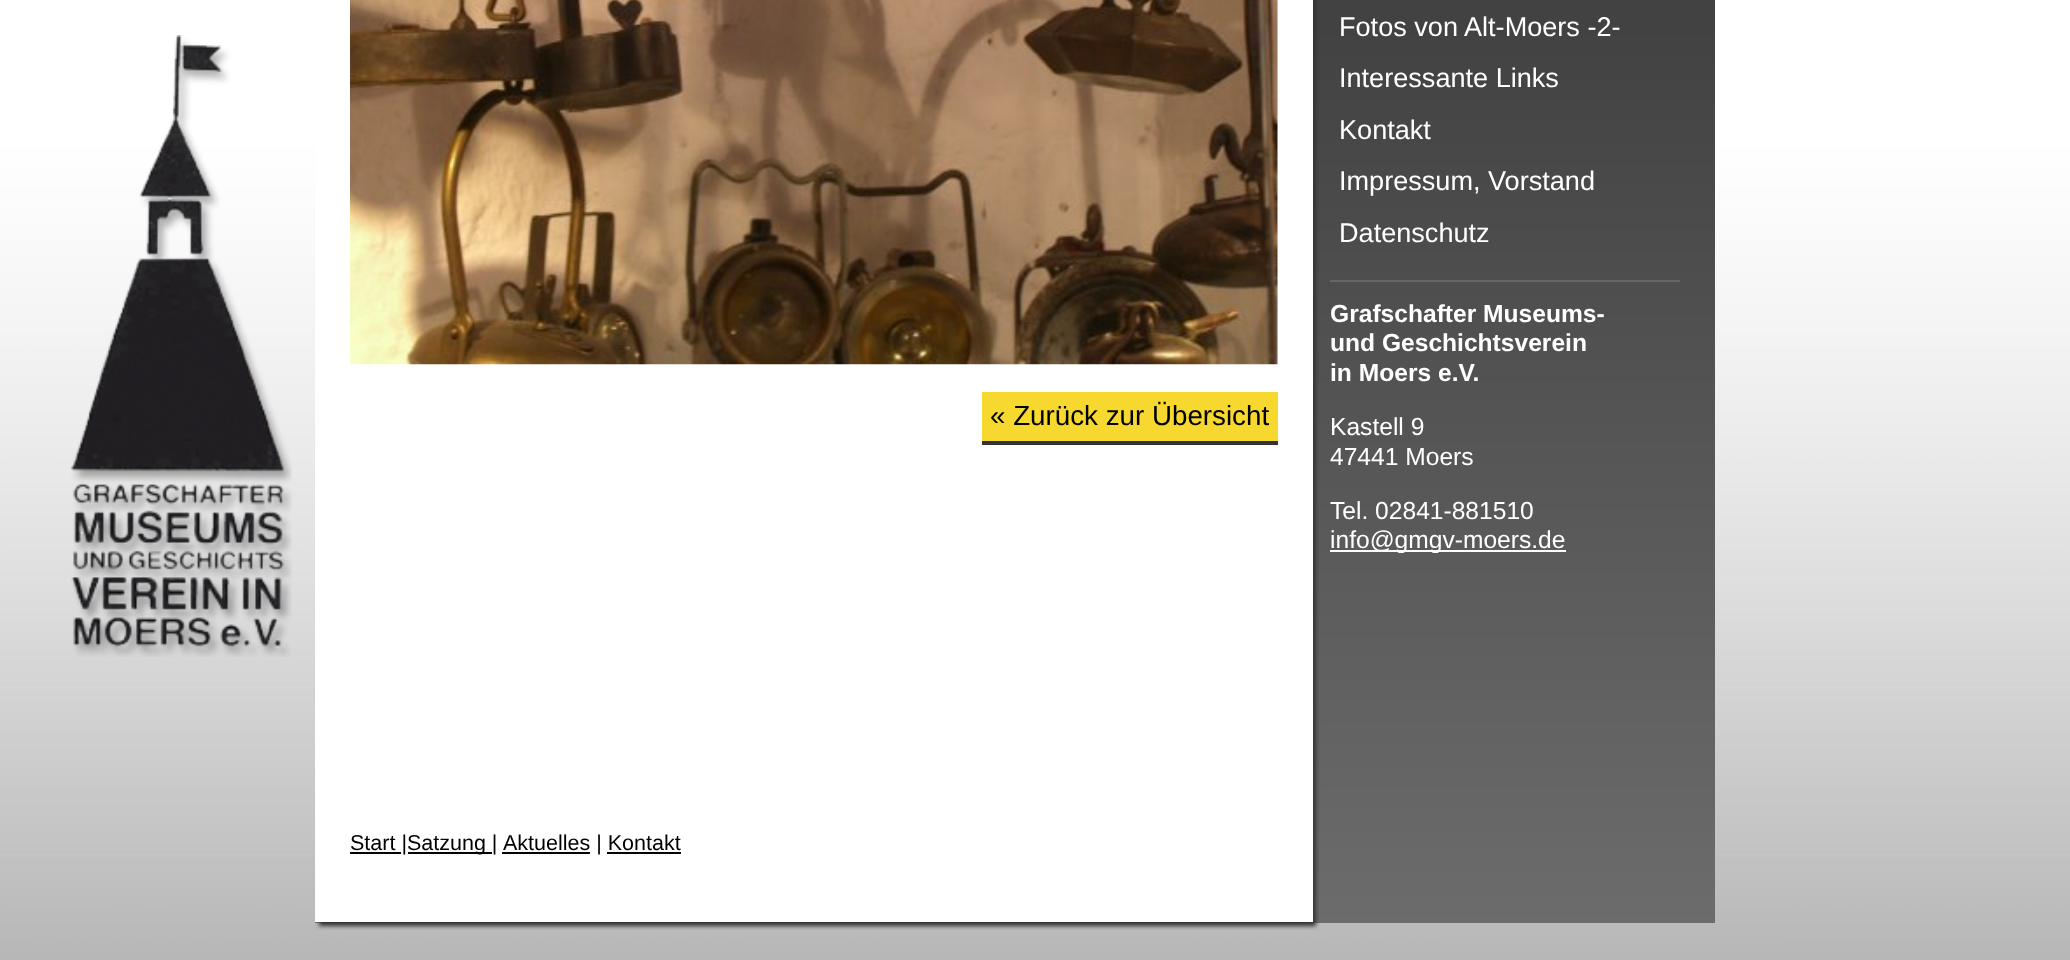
<!DOCTYPE html>
<meta charset="utf-8">
<style>body { margin: 0 } canvas { display: block }</style>
<canvas id="canvas" width="2070" height="960"></canvas>
<script type="module">
  const canvas = document.getElementById("canvas");
  const g = canvas.getContext("2d");
  g.miterLimit = 4;
  g.fontKerning = "normal";
  function drawText(s, x, y, [font, color]) {
    g.font = font;
    g.fillStyle = color;
    g.fillText(s, x, y);
  }
  function fillBox(x, y, w, h, color) {
    g.fillStyle = color;
    g.fillRect(x, y, w, h);
  }
  async function drawPicture(src, x, y, w, h) {
    const img = new Image();
    img.src = src;
    await img.decode();
    g.drawImage(img, x, y, w, h);
  }

  const s1 = ["27.1px Liberation Sans", "#FFFFFF"];
  const s2 = ["bold 24.6px Liberation Sans", "#FFFFFF"];
  const s3 = ["24.6px Liberation Sans", "#FFFFFF"];
  const s4 = ["27.75px Liberation Sans", "#000000"];
  const s5 = ["21.5px Liberation Sans", "#000000"];

  fillBox(0, 0, 2070, 960, "#FFFFFF");
  await drawPicture("pic1.png", 0, 0, 2070, 960);
  await drawPicture("pic2.png", 70, 35, 222, 622);
  await drawPicture("pic3.png", 315, 0, 1400, 923);
  fillBox(1330, 280, 350, 2, "#666666");
  drawText("Fotos von Alt-Moers -2-", 1339, 36, s1);
  drawText("Interessante Links", 1339, 87, s1);
  drawText("Kontakt", 1339, 139, s1);
  drawText("Impressum, Vorstand", 1339, 190, s1);
  drawText("Datenschutz", 1339, 242, s1);
  drawText("Grafschafter Museums-", 1330, 322, s2);
  drawText("und Geschichtsverein", 1330, 351, s2);
  drawText("in Moers e.V.", 1330, 381, s2);
  drawText("Kastell 9", 1330, 435, s3);
  drawText("47441 Moers", 1330, 465, s3);
  drawText("Tel. 02841-881510", 1330, 519, s3);
  fillBox(1330, 550, 236, 2, "#FFFFFF");
  drawText("info@gmgv-moers.de", 1330, 548, s3);
  g.fillStyle = "#333333";
  g.filter = "blur(2px)";
  g.beginPath();
  g.rect(319, -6, 997, 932);
  g.fill();
  g.filter = "none";
  fillBox(315, 0, 998, 922, "#FFFFFF");
  await drawPicture("pic4.png", 350, 0, 928, 365);
  fillBox(982, 392, 296, 49, "#F7D82E");
  fillBox(982, 441, 296, 4, "#333333");
  drawText("« Zurück zur Übersicht", 990, 425, s4);
  fillBox(350, 852, 51, 2, "#000000");
  drawText("Start |", 350, 850, s5);
  fillBox(408, 852, 84, 2, "#000000");
  drawText("Satzung |", 407, 850, s5);
  fillBox(502, 852, 88, 2, "#000000");
  drawText("Aktuelles | Kontakt", 503, 850, s5);
  fillBox(607, 852, 74, 2, "#000000");
</script>
